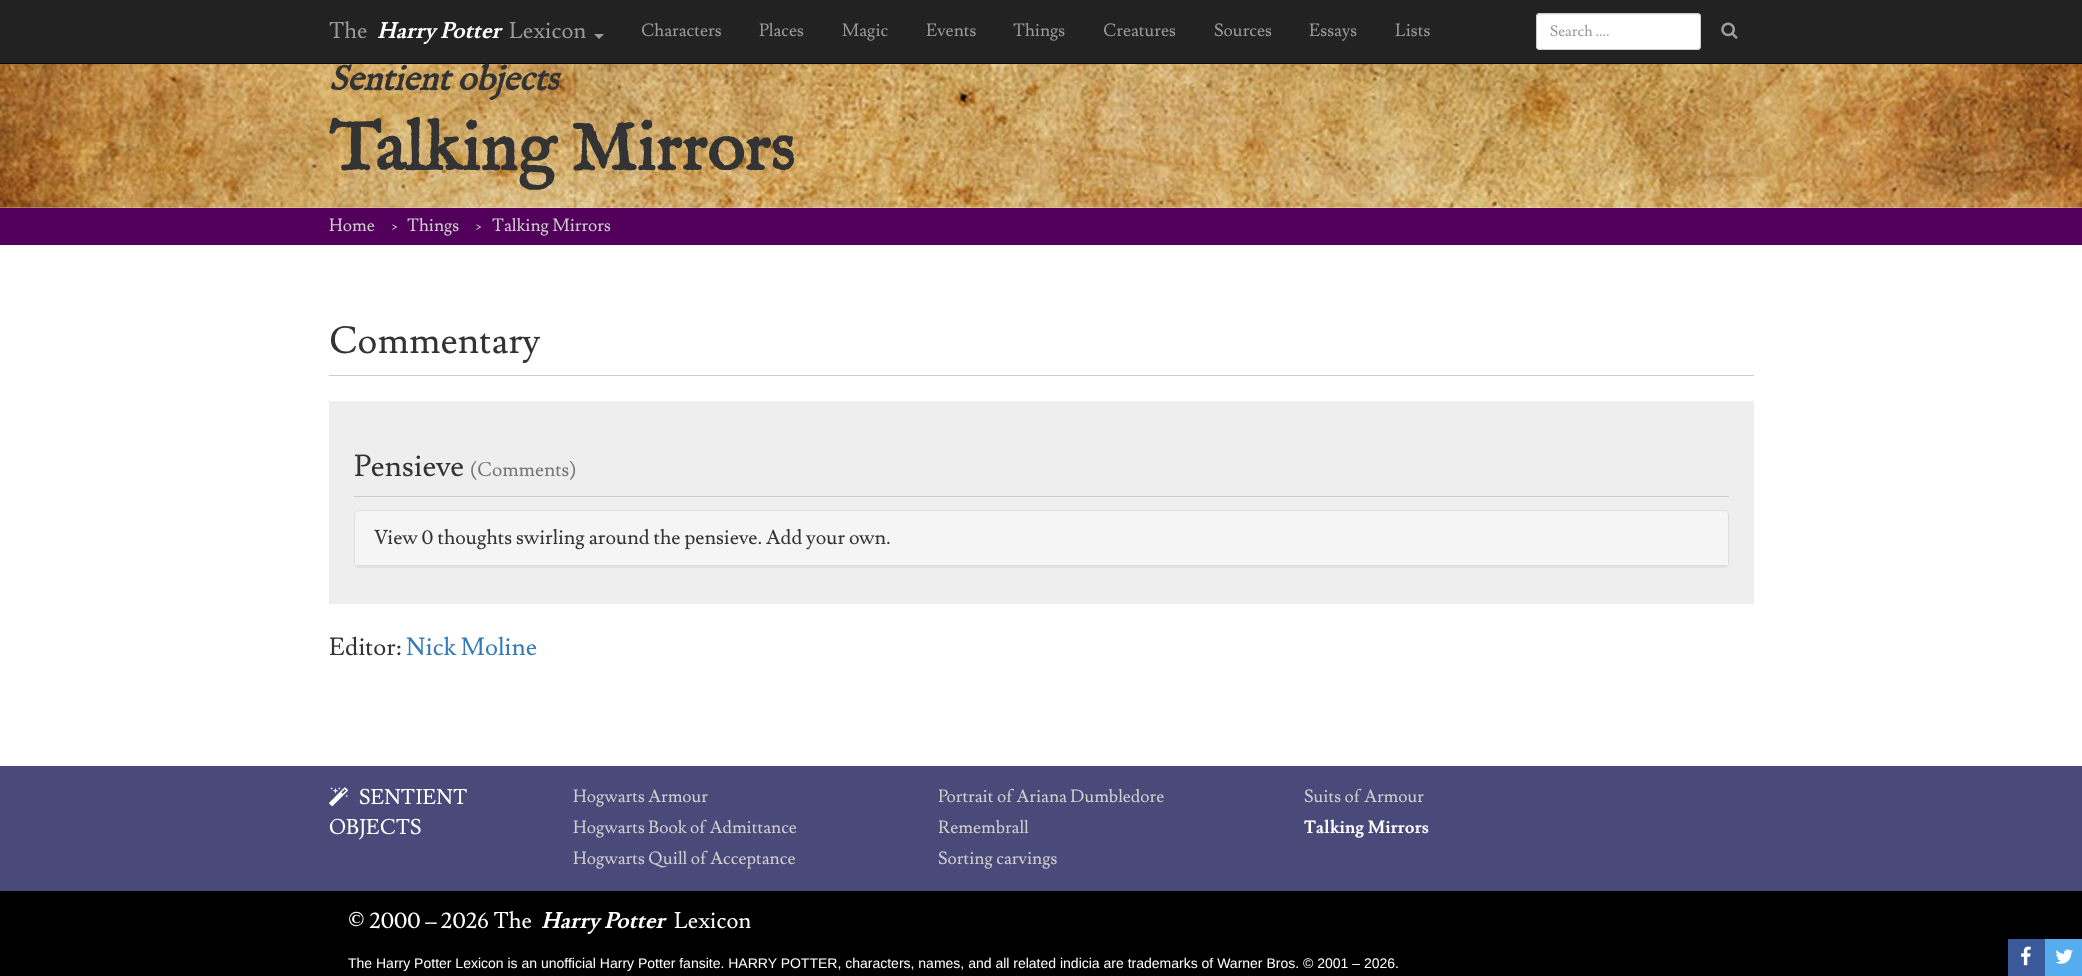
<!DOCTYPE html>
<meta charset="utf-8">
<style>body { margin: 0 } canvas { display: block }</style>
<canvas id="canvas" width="2082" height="976"></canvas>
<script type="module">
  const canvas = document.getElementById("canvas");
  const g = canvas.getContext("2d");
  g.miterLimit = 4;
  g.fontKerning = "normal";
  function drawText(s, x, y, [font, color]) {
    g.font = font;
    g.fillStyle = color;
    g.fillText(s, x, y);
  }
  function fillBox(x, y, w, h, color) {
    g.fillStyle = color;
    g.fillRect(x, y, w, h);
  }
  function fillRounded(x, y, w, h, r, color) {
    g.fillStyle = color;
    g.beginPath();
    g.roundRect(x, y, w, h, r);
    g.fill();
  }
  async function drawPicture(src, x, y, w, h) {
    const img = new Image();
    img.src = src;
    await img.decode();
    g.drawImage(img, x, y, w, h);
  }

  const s1 = ["22.5px Lusitana", "#999999"];
  const s2 = ["italic bold 22.5px Lusitana", "#FFFFFF"];
  const s3 = ["17.5px Lusitana", "#999999"];
  const s4 = ["15px Lusitana", "#999999"];
  const s5 = ["italic bold 35px IM FELL English", "#333333"];
  const s6 = ["bold 70px IM FELL English", "#333333"];
  const s7 = ["17.5px Lusitana", "#CECECE"];
  const s8 = ["37.5px Lusitana", "#333333"];
  const s9 = ["30px Lusitana", "#333333"];
  const s10 = ["19.5px Lusitana", "#777777"];
  const s11 = ["20px Lusitana", "#333333"];
  const s12 = ["24.5px Lusitana", "#333333"];
  const s13 = ["24.5px Lusitana", "#337AB7"];
  const s14 = ["21px Lusitana", "#FFFFFF"];
  const s15 = ["bold 17.5px Lusitana", "#FFFFFF"];
  const s16 = ["22.5px Lusitana", "#FFFFFF"];
  const s17 = ["14px Liberation Sans", "#FFFFFF"];

  fillBox(0, 0, 2082, 976, "#FFFFFF");
  fillBox(0, 0, 2082, 63, "#222222");
  fillBox(0, 63, 2082, 1, "#080808");
  drawText("The", 329, 38, s1);
  drawText("Harry Potter", 377, 38, s2);
  drawText("Lexicon", 509, 38, s1);
  g.fillStyle = "#9D9D9D";
  g.beginPath();
  g.moveTo(594, 34);
  g.lineTo(604, 34);
  g.lineTo(599, 39);
  g.closePath();
  g.fill();
  drawText("Characters", 641, 36, s3);
  drawText("Places", 759, 36, s3);
  drawText("Magic", 842, 36, s3);
  drawText("Events", 926, 36, s3);
  drawText("Things", 1013, 36, s3);
  drawText("Creatures", 1103, 36, s3);
  drawText("Sources", 1214, 36, s3);
  drawText("Essays", 1309, 36, s3);
  drawText("Lists", 1395, 36, s3);
  fillRounded(1536, 13, 165, 37, 4, "#FFFFFF");
  g.fillStyle = "#ECECEC";
  g.beginPath();
  g.moveTo(1540, 15);
  g.lineTo(1698, 15);
  g.bezierCurveTo(1699, 15, 1700, 16, 1700, 18);
  g.lineTo(1700, 16);
  g.bezierCurveTo(1700, 15, 1699, 14, 1698, 14);
  g.lineTo(1540, 14);
  g.bezierCurveTo(1539, 14, 1538, 15, 1538, 16);
  g.lineTo(1538, 18);
  g.bezierCurveTo(1538, 16, 1539, 15, 1540, 15);
  g.closePath();
  g.fill();
  g.beginPath();
  g.roundRect(1536.5, 13.5, 164, 36, 3.5);
  g.strokeStyle = "#CCCCCC";
  g.stroke();
  drawText("Search ....", 1550, 36, s4);
  await drawPicture("pic1.png", 1721, 22, 17, 17);
  await drawPicture("pic2.png", 0, 64, 2082, 144);
  drawText("Sentient objects", 329, 90, s5);
  drawText("Talking Mirrors", 329, 170, s6);
  fillBox(0, 208, 2082, 37, "#52005C");
  drawText("Home", 329, 231, s7);
  drawText("›", 391, 231, s7);
  drawText("Things", 407, 231, s7);
  drawText("›", 475, 231, s7);
  drawText("Talking Mirrors", 492, 231, s7);
  fillBox(329, 375, 1425, 1, "#CCCCCC");
  drawText("Commentary", 329, 353, s8);
  fillBox(329, 401, 1425, 203, "#EEEEEE");
  fillBox(354, 496, 1375, 1, "#CCCCCC");
  drawText("Pensieve", 354, 476, s9);
  drawText("(Comments)", 470, 476, s10);
  g.fillStyle = "rgba(0, 0, 0, 0.05)";
  g.filter = "blur(0.5px)";
  g.beginPath();
  g.roundRect(354, 511, 1375, 57, 5);
  g.fill();
  g.filter = "none";
  g.beginPath();
  g.roundRect(354.5, 510.5, 1374, 55, 4.5);
  g.strokeStyle = "#DDDDDD";
  g.stroke();
  g.fillStyle = "#F5F5F5";
  g.beginPath();
  g.roundRect(355, 511, 1373, 54, [4, 4, 0, 0]);
  g.fill();
  drawText("View 0 thoughts swirling around the pensieve. Add your own.", 374, 544, s11);
  drawText("Editor:", 329, 655, s12);
  drawText("Nick Moline", 406, 655, s13);
  fillBox(0, 766, 2082, 125, "#49497A");
  await drawPicture("pic3.png", 329, 787, 19, 20);
  drawText("SENTIENT", 359, 804, s14);
  drawText("OBJECTS", 329, 834, s14);
  drawText("Hogwarts Armour", 573, 802, s7);
  drawText("Hogwarts Book of Admittance", 573, 833, s7);
  drawText("Hogwarts Quill of Acceptance", 573, 864, s7);
  g.save();
  g.beginPath();
  g.rect(939, 785, 327, 25);
  g.clip();
  drawText("Portrait of Ariana Dumbledore", 938, 802, s7);
  g.restore();
  g.save();
  g.beginPath();
  g.rect(939, 816, 327, 25);
  g.clip();
  drawText("Remembrall", 938, 833, s7);
  g.restore();
  drawText("Sorting carvings", 938, 864, s7);
  drawText("Suits of Armour", 1304, 802, s7);
  drawText("Talking Mirrors", 1304, 833, s15);
  fillBox(0, 891, 2082, 85, "#000000");
  drawText("© 2000 – 2026 The", 348, 928, s16);
  drawText("Harry Potter", 541, 928, s2);
  drawText("Lexicon", 674, 928, s16);
  drawText("The Harry Potter Lexicon is an unofficial Harry Potter fansite. HARRY POTTER, characters, names, and all related indicia are trademarks of Warner Bros. © 2001 – 2026.", 348, 968, s17);
  fillBox(2008, 939, 37, 37, "#3B5998");
  await drawPicture("pic4.png", 2021, 946, 10, 20);
  fillBox(2045, 939, 37, 37, "#55ACEE");
  await drawPicture("pic5.png", 2055, 949, 18, 15);
</script>
